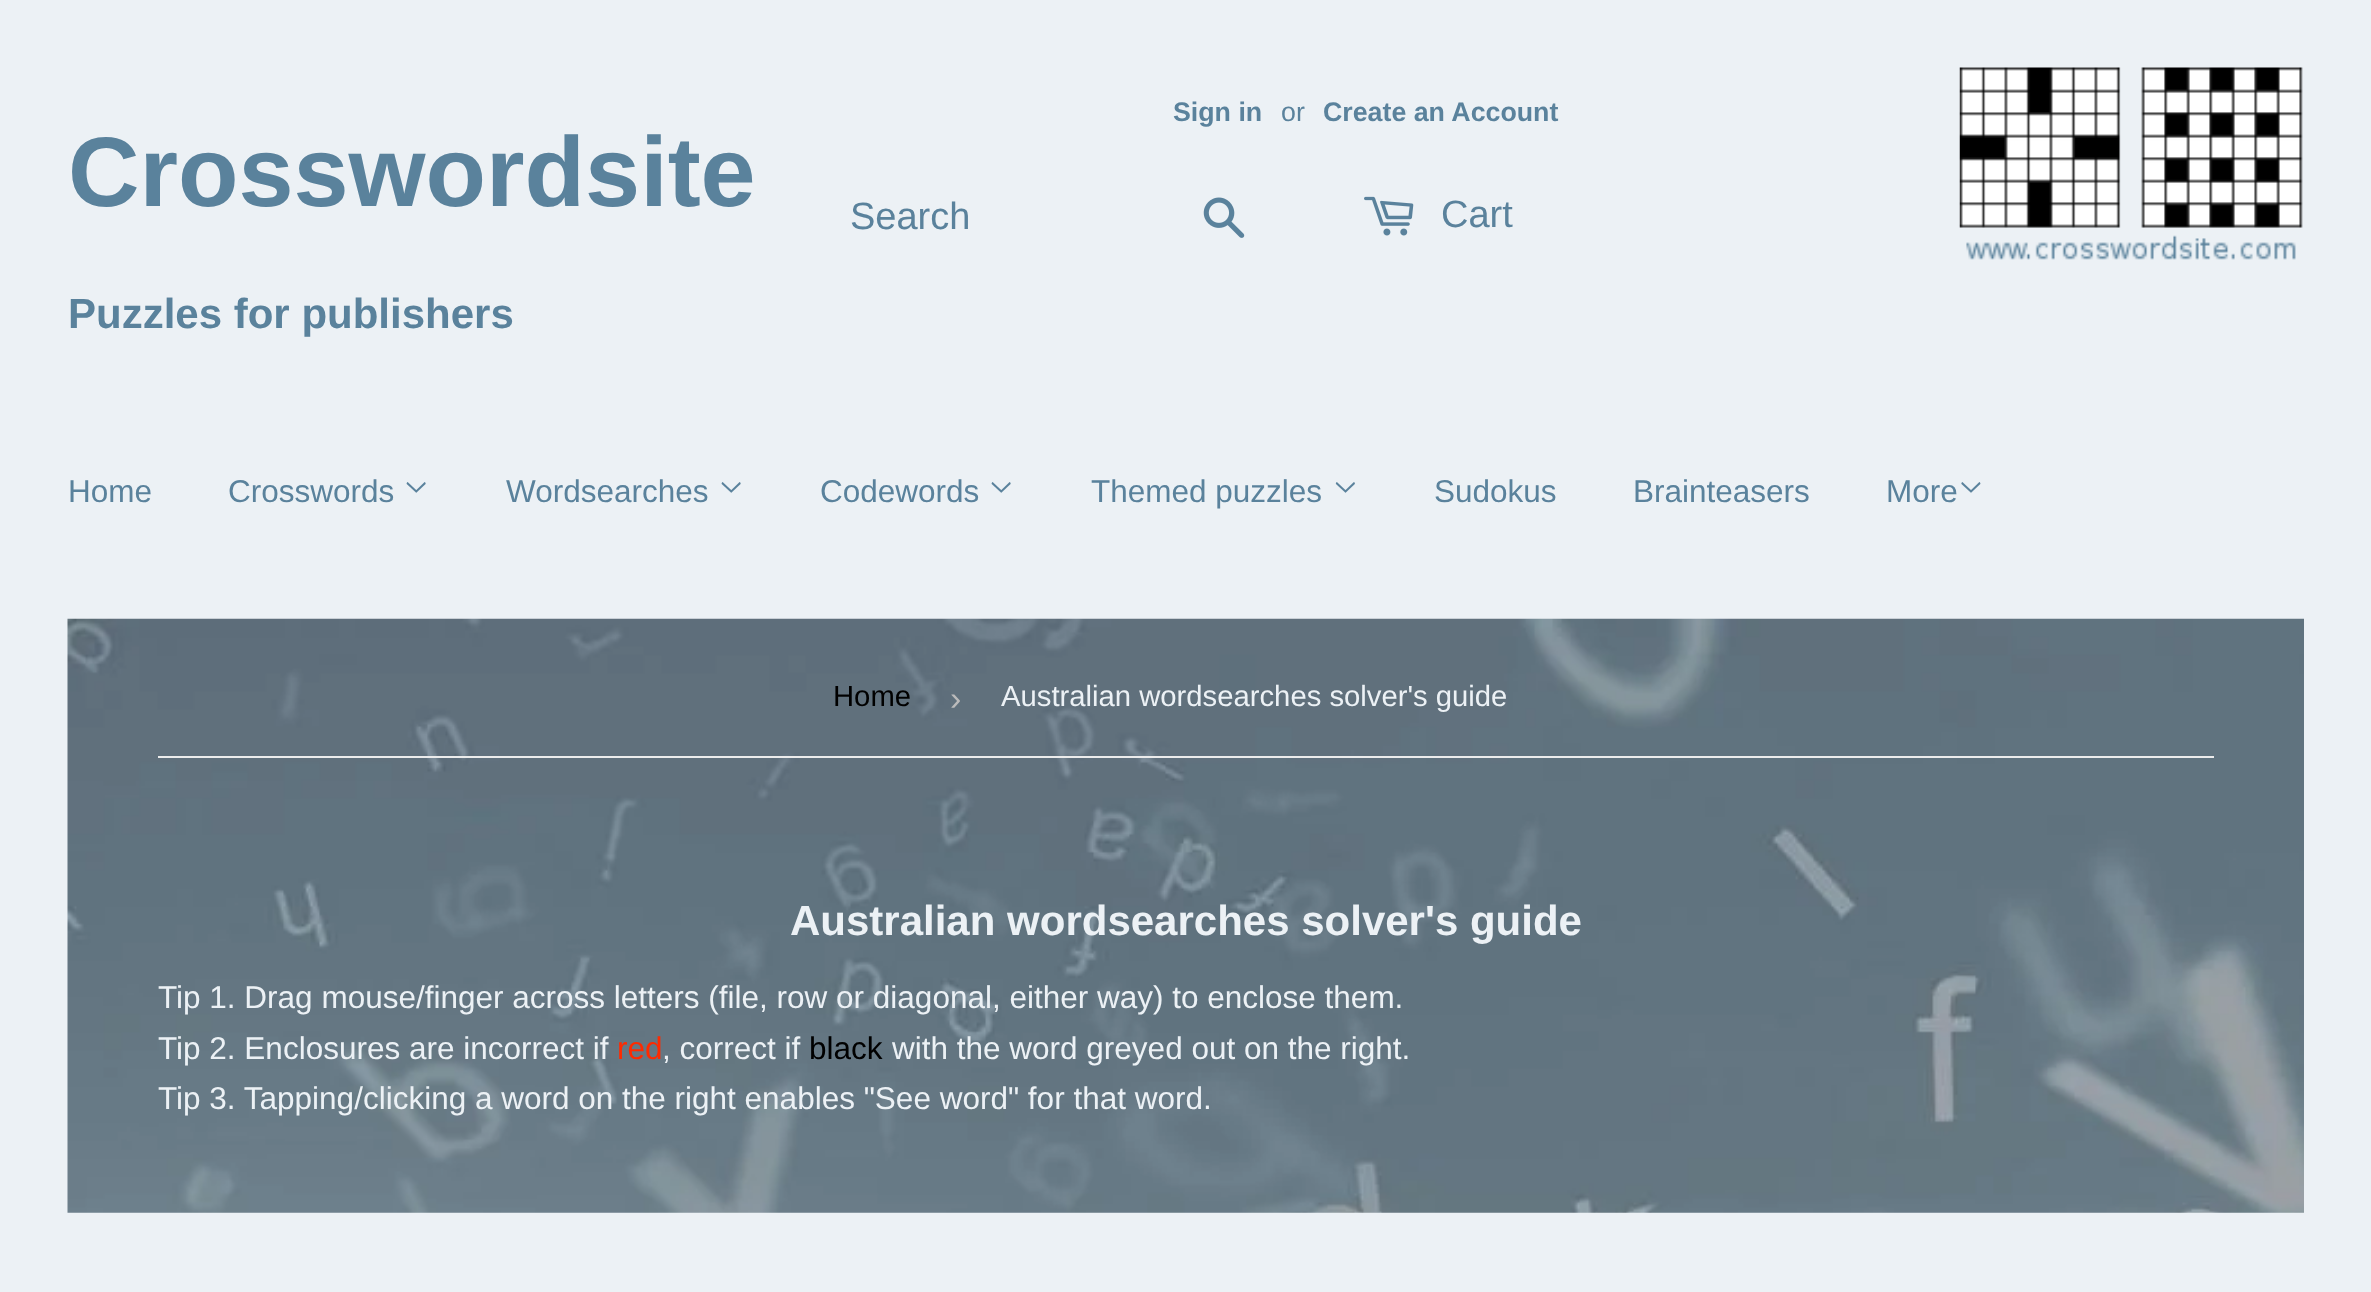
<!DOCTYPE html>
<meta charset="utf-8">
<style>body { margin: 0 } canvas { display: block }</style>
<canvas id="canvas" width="2371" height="1292"></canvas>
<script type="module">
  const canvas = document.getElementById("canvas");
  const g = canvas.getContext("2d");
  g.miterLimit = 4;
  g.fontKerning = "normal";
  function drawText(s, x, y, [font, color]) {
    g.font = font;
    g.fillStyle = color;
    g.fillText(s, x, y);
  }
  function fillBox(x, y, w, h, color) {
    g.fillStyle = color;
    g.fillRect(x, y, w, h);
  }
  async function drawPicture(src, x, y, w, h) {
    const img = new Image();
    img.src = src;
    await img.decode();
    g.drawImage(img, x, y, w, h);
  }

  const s1 = ["bold 99px Liberation Sans", "#5A829C"];
  const s2 = ["bold 26.75px Liberation Sans", "#5A829C"];
  const s3 = ["26.75px Liberation Sans", "#5A829C"];
  const s4 = ["38px Liberation Sans", "#5A829C"];
  const s5 = ["bold 42px Liberation Sans", "#5A829C"];
  const s6 = ["31.5px Liberation Sans", "#5A829C"];
  const s7 = ["29.25px Liberation Sans", "#000000"];
  const s8 = ["34px Liberation Sans", "#BBBBBB"];
  const s9 = ["29.25px Liberation Sans", "#ECF1F5"];
  const s10 = ["bold 42px Liberation Sans", "#ECF1F5"];
  const s11 = ["31.5px Liberation Sans", "#ECF1F5"];
  const s12 = ["31.5px Liberation Sans", "#FF2A00"];
  const s13 = ["31.5px Liberation Sans", "#000000"];

  fillBox(0, 0, 2371, 1292, "#ECF1F5");
  drawText("Crosswordsite", 68, 206, s1);
  drawText("Sign in", 1173, 121, s2);
  drawText("or", 1281, 121, s3);
  drawText("Create an Account", 1323, 121, s2);
  drawText("Search", 850, 229, s4);
  await drawPicture("pic1.png", 1203, 197, 42, 41);
  await drawPicture("pic2.png", 1364, 196, 50, 40);
  drawText("Cart", 1441, 227, s4);
  await drawPicture("pic3.png", 1959, 67, 344, 193);
  drawText("Puzzles for publishers", 68, 328, s5);
  drawText("Home", 68, 502, s6);
  drawText("Crosswords", 228, 502, s6);
  await drawPicture("pic4.png", 406, 482, 20, 11);
  drawText("Wordsearches", 506, 502, s6);
  await drawPicture("pic4.png", 721, 482, 20, 11);
  drawText("Codewords", 820, 502, s6);
  await drawPicture("pic4.png", 991, 482, 20, 11);
  drawText("Themed puzzles", 1091, 502, s6);
  await drawPicture("pic5.png", 1335, 482, 20, 11);
  drawText("Sudokus", 1434, 502, s6);
  drawText("Brainteasers", 1633, 502, s6);
  drawText("More", 1886, 502, s6);
  await drawPicture("pic6.png", 1961, 482, 20, 11);
  await drawPicture("pic7.png", 67, 618, 2237, 595);
  fillBox(158, 756, 2056, 2, "#ECECEC");
  drawText("Home", 833, 706, s7);
  drawText("›", 950, 710, s8);
  drawText("Australian wordsearches solver's guide", 1001, 706, s9);
  drawText("Australian wordsearches solver's guide", 790, 935, s10);
  drawText("Tip 1. Drag mouse/finger across letters (file, row or diagonal, either way) to enclose them.", 158, 1008, s11);
  drawText("Tip 2. Enclosures are incorrect if", 158, 1059, s11);
  drawText("red", 617, 1059, s12);
  drawText(", correct if", 662, 1059, s11);
  drawText("black", 809, 1059, s13);
  drawText("with the word greyed out on the right.", 892, 1059, s11);
  drawText("Tip 3. Tapping/clicking a word on the right enables \"See word\" for that word.", 158, 1109, s11);
</script>
